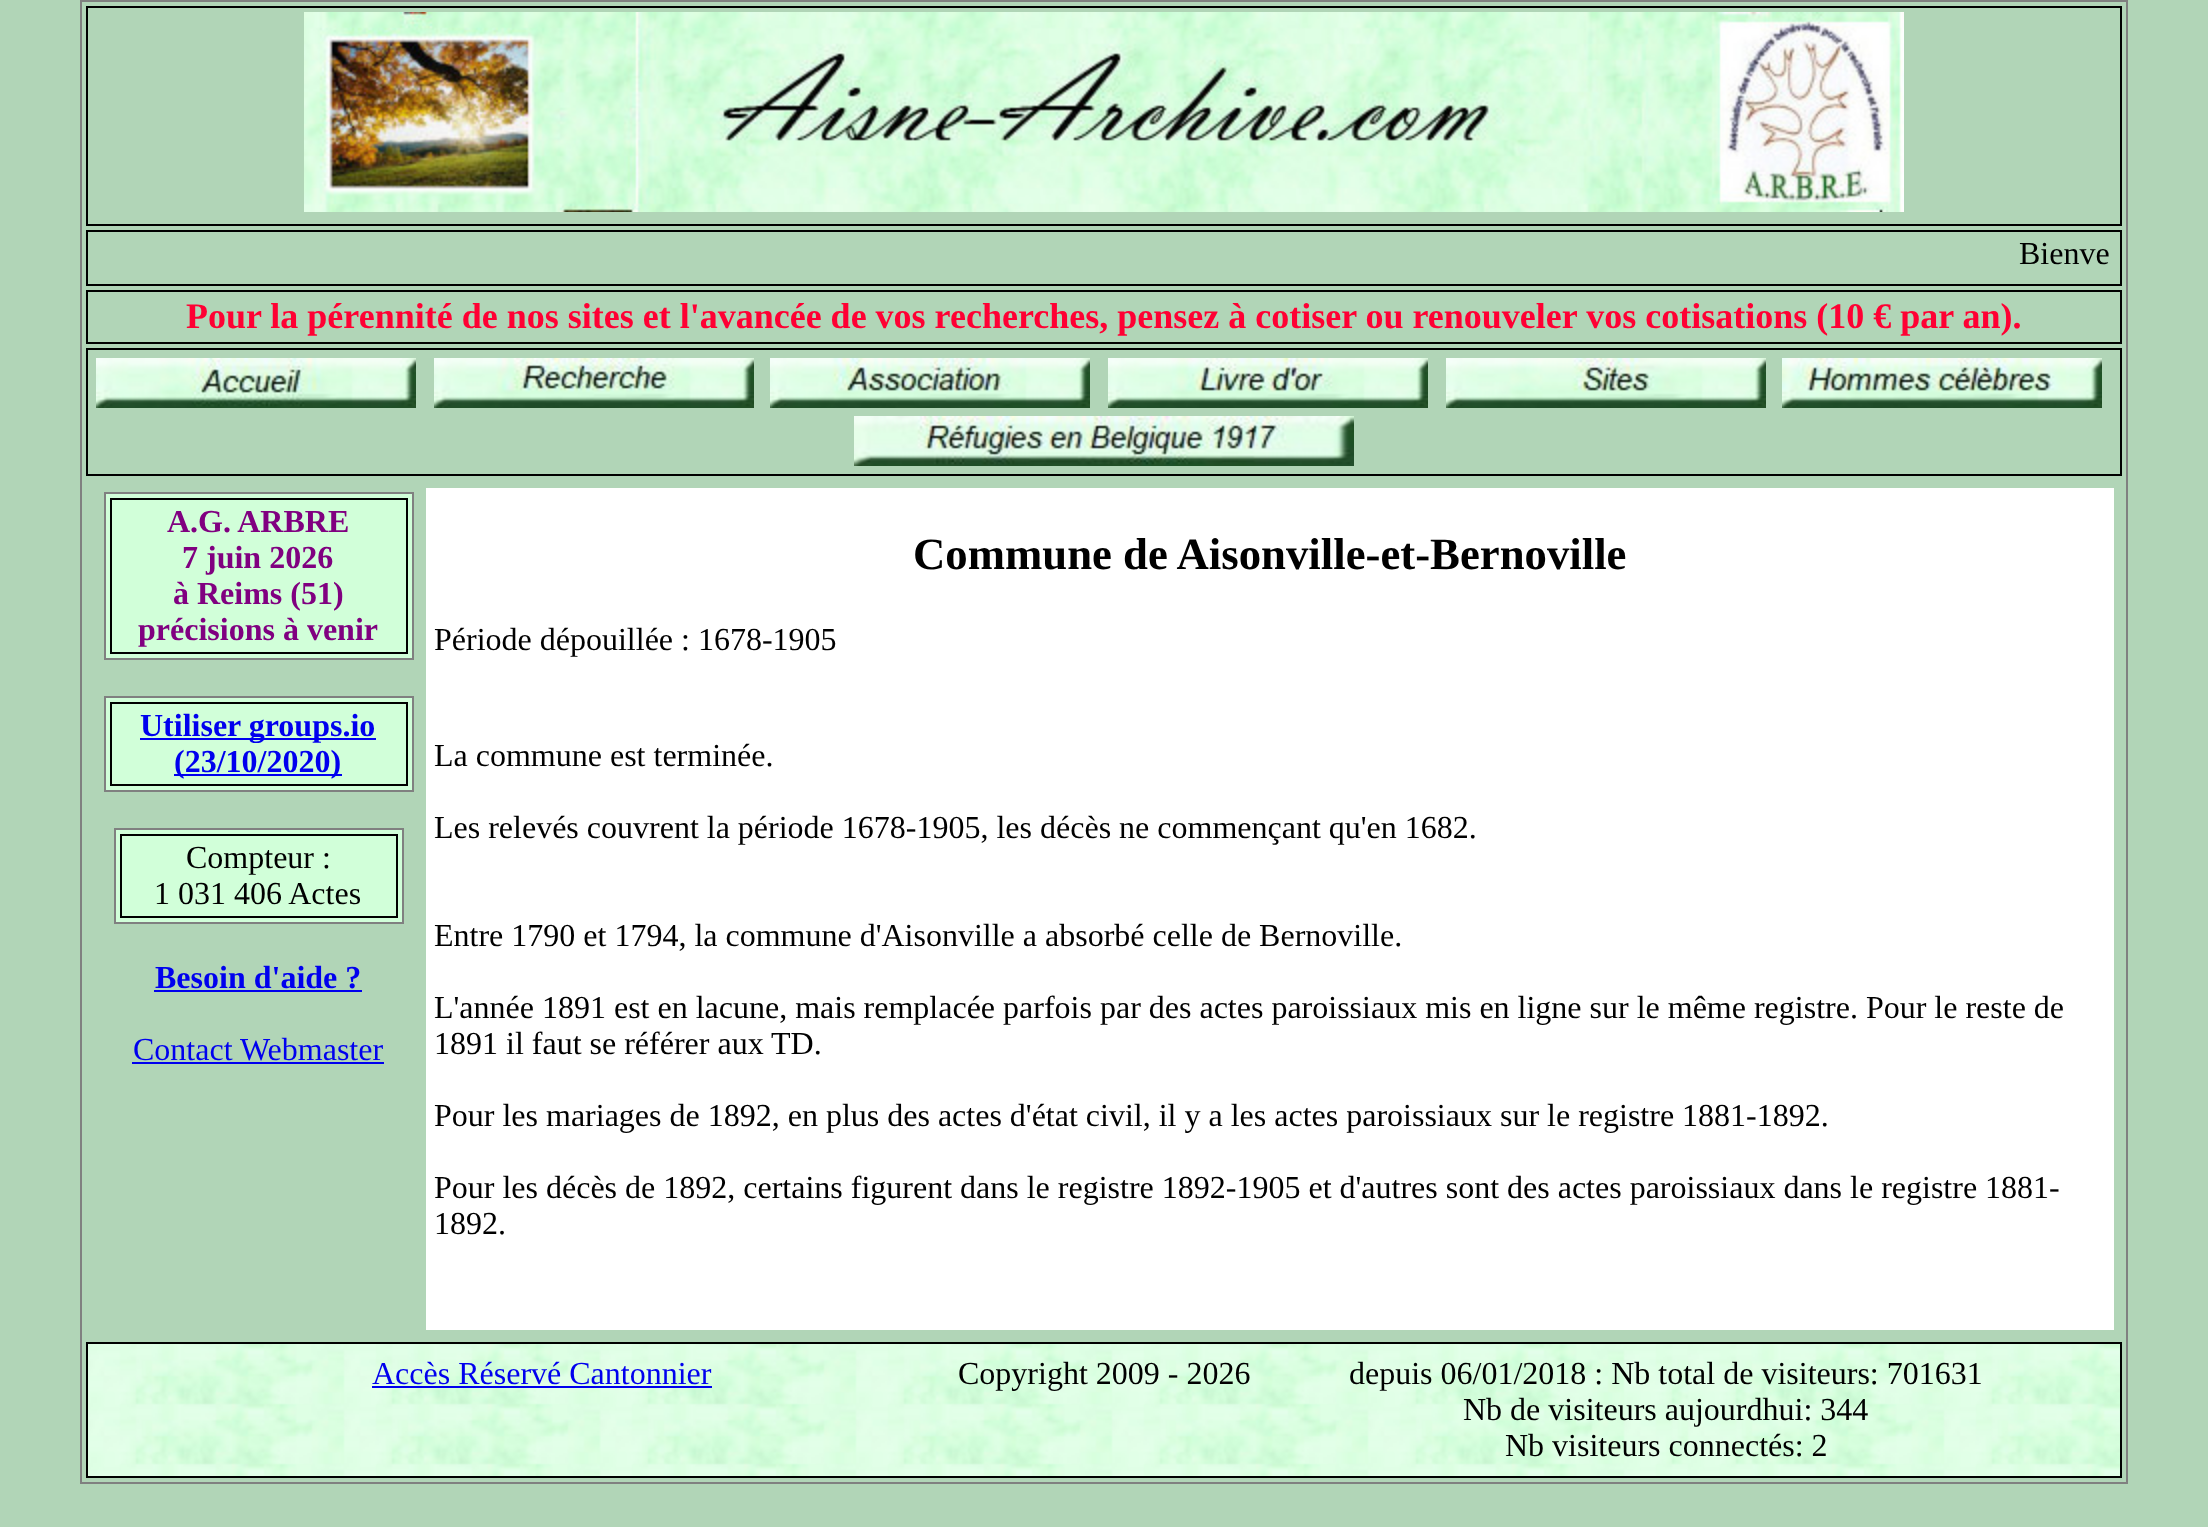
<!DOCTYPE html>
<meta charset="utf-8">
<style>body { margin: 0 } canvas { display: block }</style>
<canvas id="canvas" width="2208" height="1527"></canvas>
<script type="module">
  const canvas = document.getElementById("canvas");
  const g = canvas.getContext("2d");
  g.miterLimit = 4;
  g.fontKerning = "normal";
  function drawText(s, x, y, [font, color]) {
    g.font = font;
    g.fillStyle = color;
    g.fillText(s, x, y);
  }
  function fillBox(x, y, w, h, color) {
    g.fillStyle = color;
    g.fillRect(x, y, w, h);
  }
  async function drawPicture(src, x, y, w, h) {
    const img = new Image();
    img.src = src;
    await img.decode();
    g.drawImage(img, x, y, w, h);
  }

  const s1 = ["32px Liberation Serif", "#000000"];
  const s2 = ["bold 36px Liberation Serif", "#FF0033"];
  const s3 = ["bold 32px Liberation Serif", "#800080"];
  const s4 = ["bold 32px Liberation Serif", "#0000EE"];
  const s5 = ["32px Liberation Serif", "#0000EE"];
  const s6 = ["bold 44.75px Liberation Serif", "#000000"];

  fillBox(0, 0, 2208, 1527, "#B1D5B7");
  g.strokeStyle = "#808080";
  g.lineWidth = 2;
  g.strokeRect(81, 1, 2046, 1482);
  g.strokeStyle = "#000000";
  g.strokeRect(87, 7, 2034, 218);
  await drawPicture("pic1.png", 304, 12, 1600, 200);
  g.strokeRect(87, 231, 2034, 54);
  drawText("Bienve", 2019, 264, s1);
  g.strokeRect(87, 291, 2034, 52);
  drawText("Pour la pérennité de nos sites et l'avancée de vos recherches, pensez à cotiser ou renouveler vos cotisations (10 € par an).", 186, 328, s2);
  g.strokeRect(87, 349, 2034, 126);
  await drawPicture("pic2.png", 96, 358, 320, 50);
  await drawPicture("pic3.png", 434, 358, 320, 50);
  await drawPicture("pic4.png", 770, 358, 320, 50);
  await drawPicture("pic5.png", 1108, 358, 320, 50);
  await drawPicture("pic6.png", 1446, 358, 320, 50);
  await drawPicture("pic7.png", 1782, 358, 320, 50);
  await drawPicture("pic8.png", 854, 416, 500, 50);
  g.fillStyle = "#D1FFD9";
  g.beginPath();
  g.rect(105, 493, 308, 166);
  g.fill();
  g.strokeStyle = "#808080";
  g.stroke();
  g.strokeStyle = "#000000";
  g.strokeRect(111, 499, 296, 154);
  drawText("A.G. ARBRE", 167, 532, s3);
  drawText("7 juin 2026", 182, 568, s3);
  drawText("à Reims (51)", 173, 604, s3);
  drawText("précisions à venir", 138, 640, s3);
  g.fillStyle = "#D1FFD9";
  g.beginPath();
  g.rect(105, 697, 308, 94);
  g.fill();
  g.strokeStyle = "#808080";
  g.stroke();
  g.strokeStyle = "#000000";
  g.strokeRect(111, 703, 296, 82);
  fillBox(140, 738, 236, 2, "#0000EE");
  drawText("Utiliser groups.io", 140, 736, s4);
  fillBox(174, 774, 168, 2, "#0000EE");
  drawText("(23/10/2020)", 174, 772, s4);
  g.fillStyle = "#D1FFD9";
  g.beginPath();
  g.rect(115, 829, 288, 94);
  g.fill();
  g.strokeStyle = "#808080";
  g.stroke();
  g.strokeStyle = "#000000";
  g.strokeRect(121, 835, 276, 82);
  drawText("Compteur :", 186, 868, s1);
  drawText("1 031 406 Actes", 154, 904, s1);
  drawText("Besoin d'aide ?", 155, 988, s4);
  fillBox(154, 990, 208, 2, "#0000EE");
  drawText("Contact Webmaster", 133, 1060, s5);
  fillBox(132, 1062, 252, 2, "#0000EE");
  fillBox(426, 488, 1688, 842, "#FFFFFF");
  drawText("Commune de Aisonville-et-Bernoville", 913, 569, s6);
  drawText("Période dépouillée : 1678-1905", 434, 650, s1);
  drawText("La commune est terminée.", 434, 766, s1);
  drawText("Les relevés couvrent la période 1678-1905, les décès ne commençant qu'en 1682.", 434, 838, s1);
  drawText("Entre 1790 et 1794, la commune d'Aisonville a absorbé celle de Bernoville.", 434, 946, s1);
  drawText("L'année 1891 est en lacune, mais remplacée parfois par des actes paroissiaux mis en ligne sur le même registre. Pour le reste de", 434, 1018, s1);
  drawText("1891 il faut se référer aux TD.", 434, 1054, s1);
  drawText("Pour les mariages de 1892, en plus des actes d'état civil, il y a les actes paroissiaux sur le registre 1881-1892.", 434, 1126, s1);
  drawText("Pour les décès de 1892, certains figurent dans le registre 1892-1905 et d'autres sont des actes paroissiaux dans le registre 1881-", 434, 1198, s1);
  drawText("1892.", 434, 1234, s1);
  await drawPicture("pic9.png", 88, 1344, 2032, 132);
  g.strokeRect(87, 1343, 2034, 134);
  drawText("Accès Réservé Cantonnier", 372, 1384, s5);
  fillBox(372, 1386, 340, 2, "#0000EE");
  drawText("Copyright 2009 - 2026", 958, 1384, s1);
  drawText("depuis 06/01/2018 : Nb total de visiteurs: 701631", 1349, 1384, s1);
  drawText("Nb de visiteurs aujourdhui: 344", 1463, 1420, s1);
  drawText("Nb visiteurs connectés: 2", 1505, 1456, s1);
</script>
